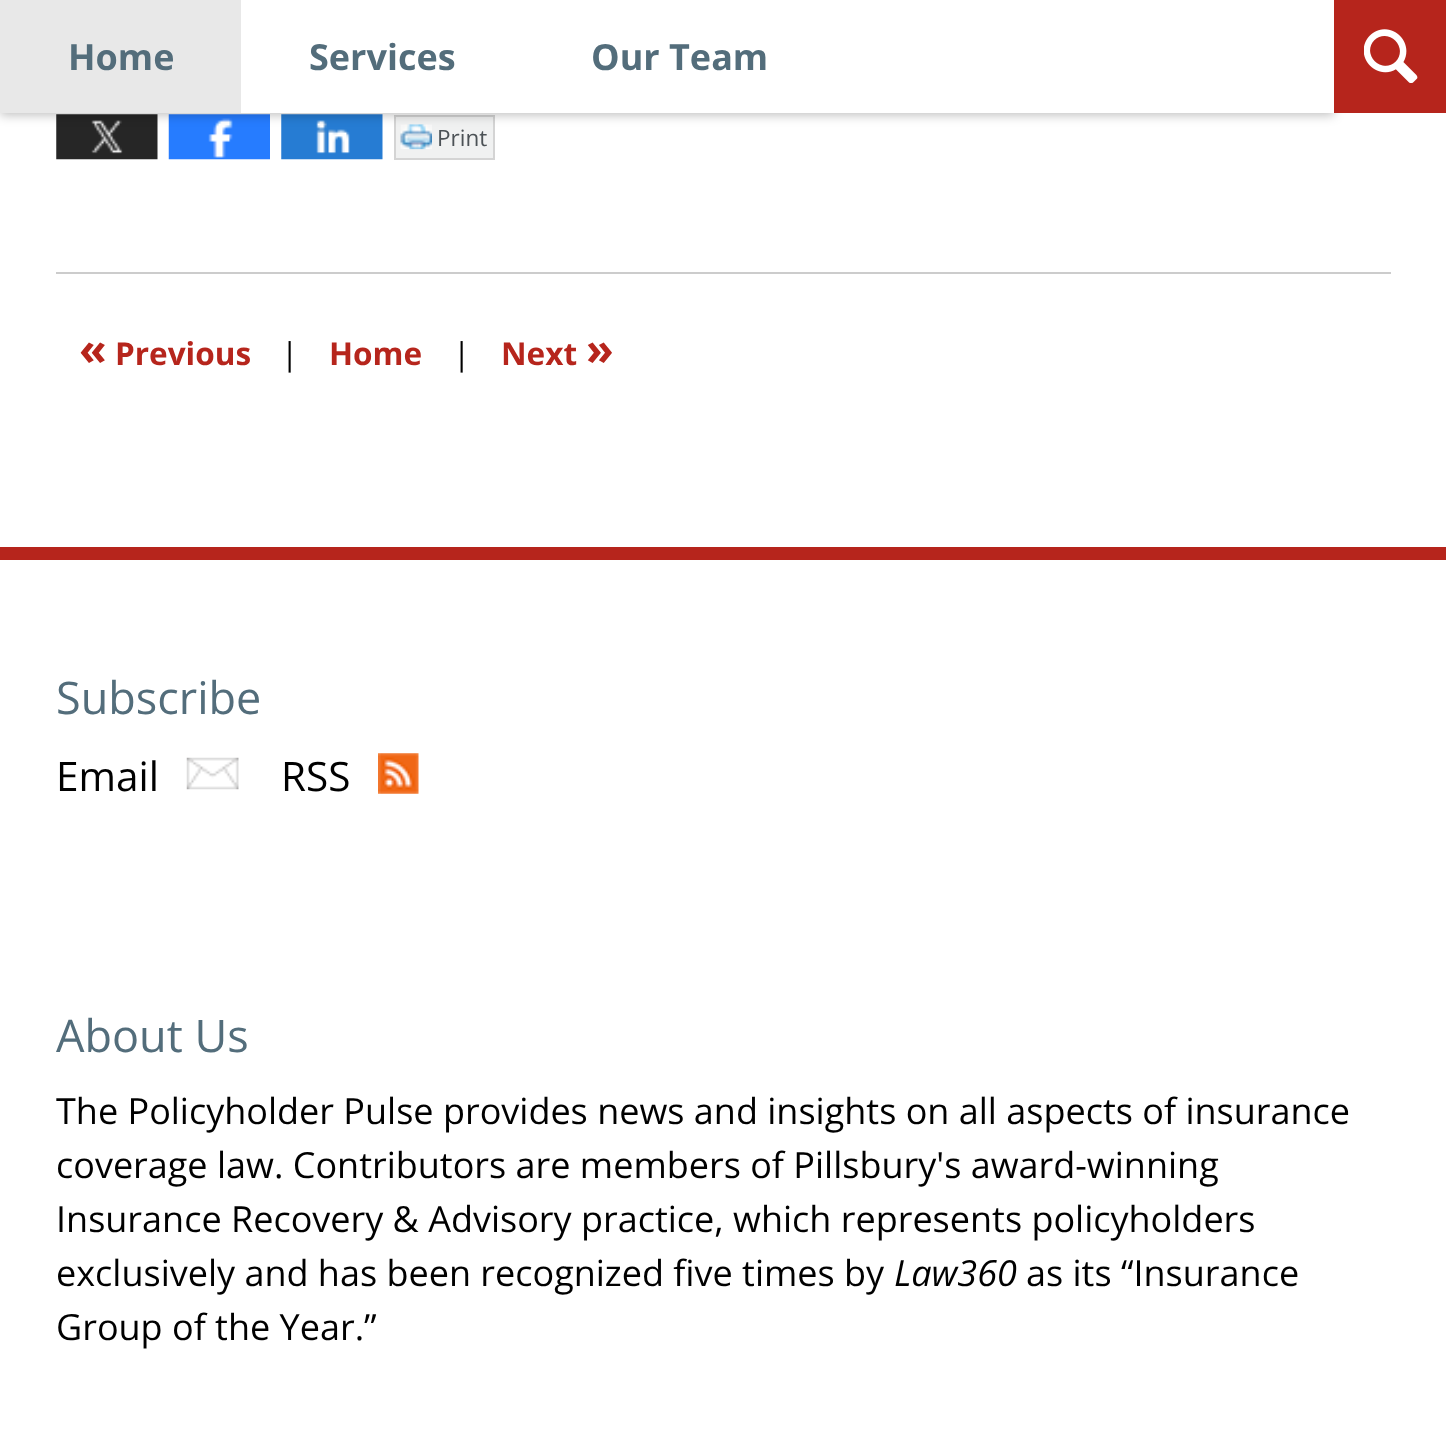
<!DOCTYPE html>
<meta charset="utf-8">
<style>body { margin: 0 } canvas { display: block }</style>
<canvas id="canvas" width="1446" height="1446"></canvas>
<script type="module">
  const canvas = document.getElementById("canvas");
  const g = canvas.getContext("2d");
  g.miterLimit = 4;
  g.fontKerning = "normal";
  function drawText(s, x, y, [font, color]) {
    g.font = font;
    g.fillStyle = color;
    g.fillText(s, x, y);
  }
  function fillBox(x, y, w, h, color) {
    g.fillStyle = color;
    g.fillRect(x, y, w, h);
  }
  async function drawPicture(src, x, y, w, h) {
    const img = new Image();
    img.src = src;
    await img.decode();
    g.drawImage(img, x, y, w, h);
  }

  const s1 = ["bold 36px Open Sans", "#536D7B"];
  const s2 = ["22.5px Open Sans", "#4C5256"];
  const s3 = ["bold 45px Open Sans", "#B6251C"];
  const s4 = ["bold 31.5px Open Sans", "#B6251C"];
  const s5 = ["31.5px Open Sans", "#000000"];
  const s6 = ["45px Open Sans", "#536D7B"];
  const s7 = ["40.5px Open Sans", "#000000"];
  const s8 = ["36px Open Sans", "#000000"];
  const s9 = ["italic 36px Open Sans", "#000000"];

  fillBox(0, 0, 1446, 1446, "#FFFFFF");
  await drawPicture("pic2.png", 56, 114, 102, 46);
  await drawPicture("pic3.png", 168, 114, 102, 46);
  await drawPicture("pic4.png", 281, 114, 102, 46);
  g.fillStyle = "#F0F1F1";
  g.beginPath();
  g.rect(395, 116, 99, 43);
  g.fill();
  g.strokeStyle = "#D4D4D4";
  g.lineWidth = 2;
  g.stroke();
  await drawPicture("pic5.png", 400, 124, 32, 26);
  g.fillStyle = "rgba(0, 0, 0, 0.26)";
  g.filter = "blur(5.5px)";
  g.beginPath();
  g.rect(0, 2, 1334, 113);
  g.fill();
  g.filter = "none";
  fillBox(241, 0, 1093, 113, "#FFFFFF");
  fillBox(0, 0, 241, 113, "#E8E8E8");
  drawText("Home", 68, 70, s1);
  drawText("Services", 309, 70, s1);
  drawText("Our Team", 591, 70, s1);
  fillBox(1334, 0, 112, 113, "#B6251C");
  await drawPicture("pic1.png", 1364, 29, 54, 54);
  fillBox(56, 272, 1335, 2, "#CCCCCC");
  drawText("Print", 437, 146, s2);
  drawText("«", 79, 365, s3);
  drawText("Previous", 115, 365, s4);
  drawText("|", 281, 365, s5);
  drawText("Home", 329, 365, s4);
  drawText("|", 453, 365, s5);
  drawText("Next", 501, 365, s4);
  drawText("»", 586, 365, s3);
  fillBox(0, 547, 1446, 13, "#B6251C");
  drawText("Subscribe", 56, 714, s6);
  drawText("Email", 56, 791, s7);
  await drawPicture("pic6.png", 186, 757, 53, 33);
  drawText("RSS", 281, 791, s7);
  await drawPicture("pic7.png", 378, 753, 41, 41);
  drawText("About Us", 56, 1052, s6);
  drawText("The Policyholder Pulse provides news and insights on all aspects of insurance", 56, 1124, s8);
  drawText("coverage law. Contributors are members of Pillsbury's award-winning", 56, 1178, s8);
  drawText("Insurance Recovery & Advisory practice, which represents policyholders", 56, 1232, s8);
  drawText("exclusively and has been recognized five times by", 56, 1286, s8);
  drawText("Law360", 894, 1286, s9);
  drawText("as its “Insurance", 1026, 1286, s8);
  drawText("Group of the Year.”", 56, 1340, s8);
</script>
